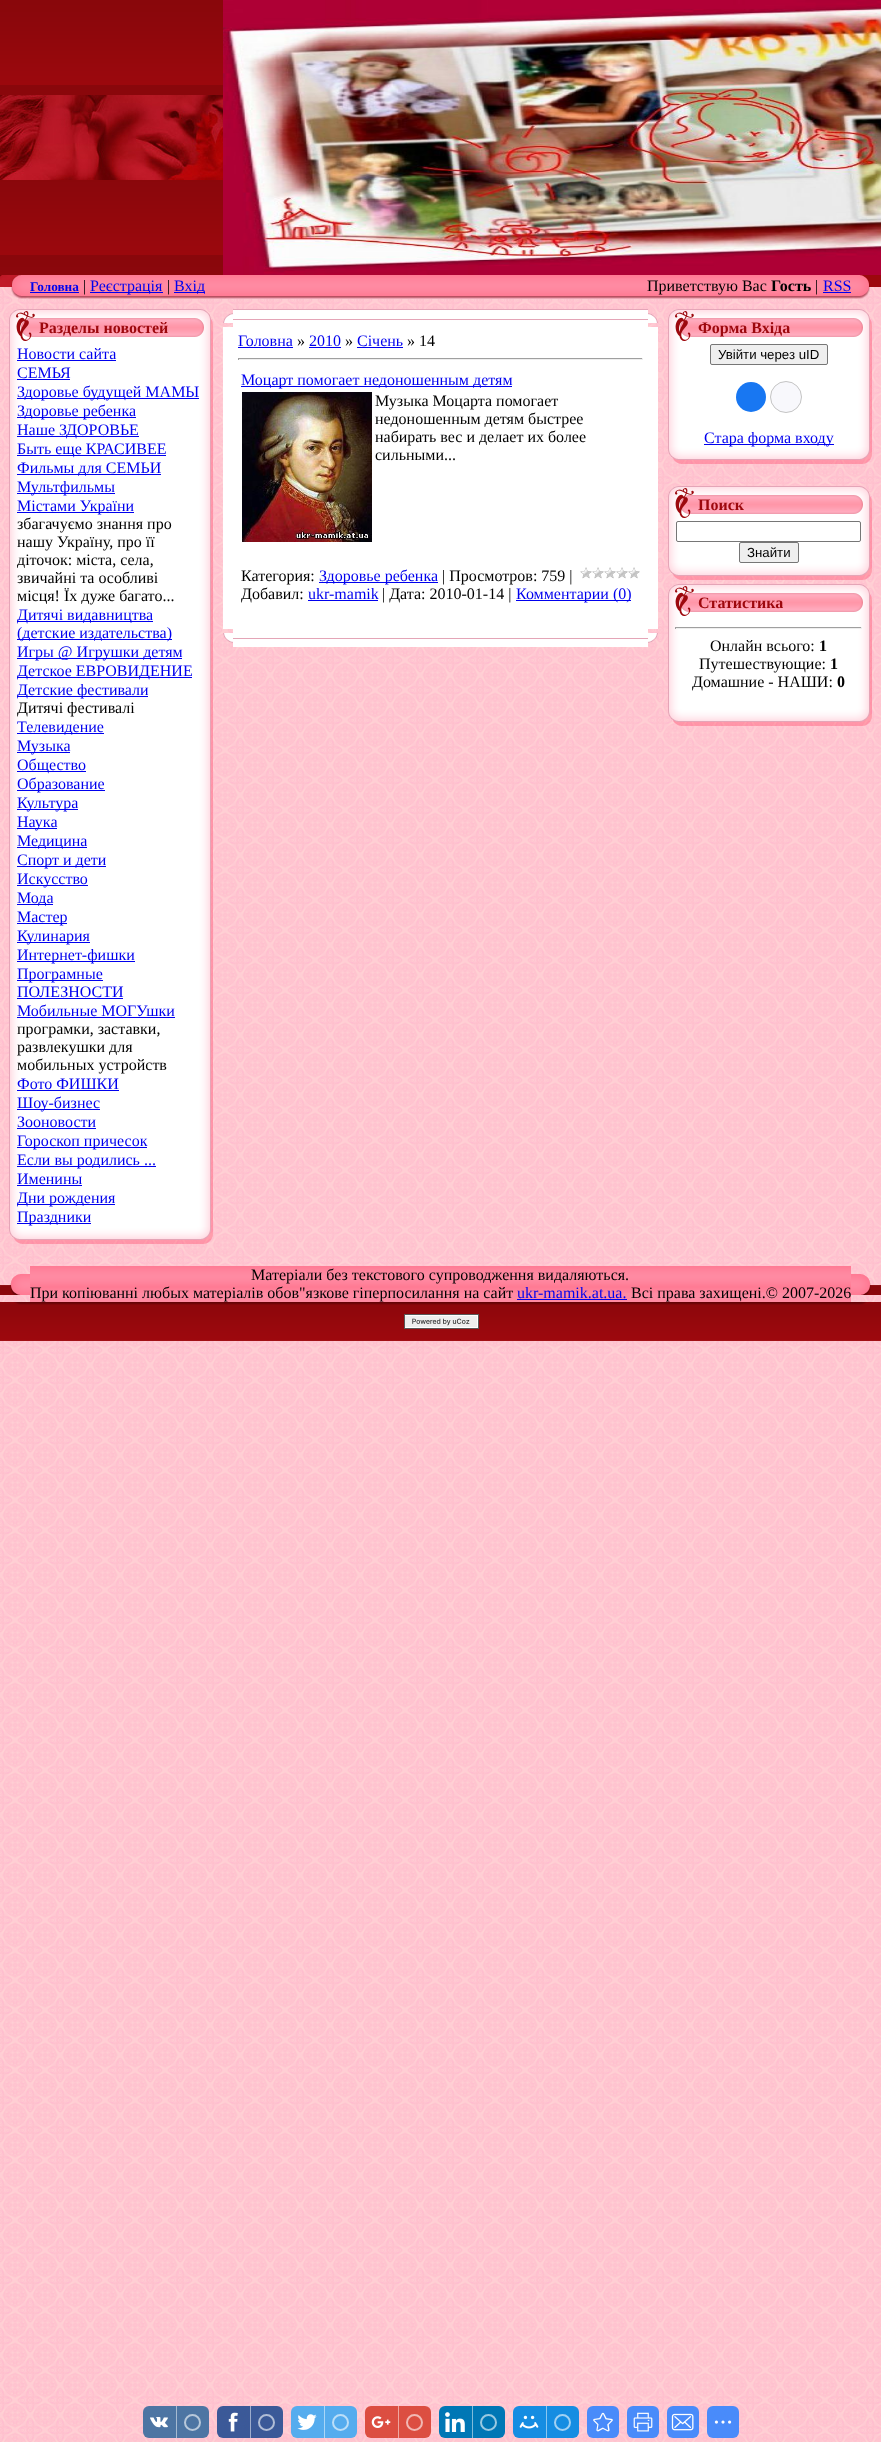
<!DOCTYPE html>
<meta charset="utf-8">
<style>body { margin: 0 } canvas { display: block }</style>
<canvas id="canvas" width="881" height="2442"></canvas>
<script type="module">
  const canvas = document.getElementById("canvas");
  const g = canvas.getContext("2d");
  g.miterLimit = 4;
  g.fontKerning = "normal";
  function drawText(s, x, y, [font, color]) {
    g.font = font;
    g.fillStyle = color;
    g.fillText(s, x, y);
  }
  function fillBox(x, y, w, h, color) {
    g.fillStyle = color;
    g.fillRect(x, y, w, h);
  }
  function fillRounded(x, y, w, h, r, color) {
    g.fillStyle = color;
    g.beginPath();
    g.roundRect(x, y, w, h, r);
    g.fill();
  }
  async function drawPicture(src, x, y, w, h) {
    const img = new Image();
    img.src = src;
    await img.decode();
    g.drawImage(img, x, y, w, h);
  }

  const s1 = ["bold 13.25px Liberation Serif", "#0000EE"];
  const s2 = ["16px Liberation Serif", "#000000"];
  const s3 = ["16px Liberation Serif", "#0000EE"];
  const s4 = ["bold 16px Liberation Serif", "#000000"];
  const s5 = ["bold 16px Liberation Serif", "#9D080D"];
  const s6 = ["13.25px Liberation Sans", "#000000"];

  fillBox(0, 0, 881, 2442, "#FFFFFF");
  await drawPicture("pic1.png", 0, 287, 881, 2155);
  await drawPicture("pic2.png", 0, 0, 223, 275);
  await drawPicture("pic3.png", 0, 95, 223, 85);
  await drawPicture("pic4.png", 223, 0, 658, 275);
  await drawPicture("pic5.png", 0, 275, 30, 24);
  await drawPicture("pic6.png", 30, 275, 379, 24);
  drawText("Головна", 30, 291, s1);
  fillBox(30, 292, 49, 1, "#0000EE");
  drawText("|", 83, 291, s2);
  fillBox(90, 292, 73, 1, "#0000EE");
  drawText("Реєстрація", 90, 291, s3);
  drawText("|", 167, 291, s2);
  fillBox(174, 292, 31, 1, "#0000EE");
  drawText("Вхід", 174, 291, s3);
  await drawPicture("pic7.png", 409, 275, 442, 24);
  drawText("Приветствую Вас", 647, 291, s2);
  drawText("Гость", 771, 291, s4);
  drawText("|", 815, 291, s2);
  drawText("RSS", 823, 291, s3);
  fillBox(823, 292, 28, 1, "#0000EE");
  await drawPicture("pic8.png", 851, 275, 30, 24);
  await drawPicture("pic9.png", 9, 309, 204, 32);
  drawText("Разделы новостей", 39, 333, s5);
  await drawPicture("pic10.png", 9, 341, 204, 886);
  drawText("Новости сайта", 17, 359, s3);
  fillBox(17, 360, 99, 1, "#0000EE");
  drawText("СЕМЬЯ", 17, 378, s3);
  fillBox(17, 379, 53, 1, "#0000EE");
  fillBox(17, 398, 182, 1, "#0000EE");
  drawText("Здоровье будущей МАМЫ", 17, 397, s3);
  fillBox(17, 417, 119, 1, "#0000EE");
  drawText("Здоровье ребенка", 17, 416, s3);
  fillBox(17, 436, 122, 1, "#0000EE");
  drawText("Наше ЗДОРОВЬЕ", 17, 435, s3);
  fillBox(17, 455, 149, 1, "#0000EE");
  drawText("Быть еще КРАСИВЕЕ", 17, 454, s3);
  fillBox(17, 474, 144, 1, "#0000EE");
  drawText("Фильмы для СЕМЬИ", 17, 473, s3);
  fillBox(17, 493, 98, 1, "#0000EE");
  drawText("Мультфильмы", 17, 492, s3);
  fillBox(17, 512, 117, 1, "#0000EE");
  drawText("Містами України", 17, 511, s3);
  drawText("збагачуємо знання про", 17, 529, s2);
  drawText("нашу Україну, про її", 17, 547, s2);
  drawText("діточок: міста, села,", 17, 565, s2);
  drawText("звичайні та особливі", 17, 583, s2);
  drawText("місця! Їх дуже багато...", 17, 601, s2);
  fillBox(17, 621, 136, 1, "#0000EE");
  drawText("Дитячі видавництва", 17, 620, s3);
  fillBox(17, 639, 155, 1, "#0000EE");
  drawText("(детские издательства)", 17, 638, s3);
  fillBox(17, 658, 165, 1, "#0000EE");
  drawText("Игры @ Игрушки детям", 17, 657, s3);
  fillBox(17, 677, 175, 1, "#0000EE");
  drawText("Детское ЕВРОВИДЕНИЕ", 17, 676, s3);
  fillBox(17, 696, 131, 1, "#0000EE");
  drawText("Детские фестивали", 17, 695, s3);
  drawText("Дитячі фестивалі", 17, 713, s2);
  fillBox(17, 733, 87, 1, "#0000EE");
  drawText("Телевидение", 17, 732, s3);
  fillBox(17, 752, 53, 1, "#0000EE");
  drawText("Музыка", 17, 751, s3);
  fillBox(17, 771, 69, 1, "#0000EE");
  drawText("Общество", 17, 770, s3);
  fillBox(17, 790, 88, 1, "#0000EE");
  drawText("Образование", 17, 789, s3);
  fillBox(17, 809, 61, 1, "#0000EE");
  drawText("Культура", 17, 808, s3);
  fillBox(17, 828, 40, 1, "#0000EE");
  drawText("Наука", 17, 827, s3);
  fillBox(17, 847, 70, 1, "#0000EE");
  drawText("Медицина", 17, 846, s3);
  fillBox(17, 866, 89, 1, "#0000EE");
  drawText("Спорт и дети", 17, 865, s3);
  fillBox(17, 885, 71, 1, "#0000EE");
  drawText("Искусство", 17, 884, s3);
  fillBox(17, 904, 36, 1, "#0000EE");
  drawText("Мода", 17, 903, s3);
  fillBox(17, 923, 50, 1, "#0000EE");
  drawText("Мастер", 17, 922, s3);
  fillBox(17, 942, 73, 1, "#0000EE");
  drawText("Кулинария", 17, 941, s3);
  fillBox(17, 961, 118, 1, "#0000EE");
  drawText("Интернет-фишки", 17, 960, s3);
  fillBox(17, 980, 86, 1, "#0000EE");
  drawText("Програмные", 17, 979, s3);
  drawText("ПОЛЕЗНОСТИ", 17, 997, s3);
  fillBox(17, 998, 106, 1, "#0000EE");
  drawText("Мобильные МОГУшки", 17, 1016, s3);
  fillBox(17, 1017, 158, 1, "#0000EE");
  drawText("програмки, заставки,", 17, 1034, s2);
  drawText("развлекушки для", 17, 1052, s2);
  drawText("мобильных устройств", 17, 1070, s2);
  drawText("Фото ФИШКИ", 17, 1089, s3);
  fillBox(17, 1090, 102, 1, "#0000EE");
  fillBox(17, 1109, 83, 1, "#0000EE");
  drawText("Шоу-бизнес", 17, 1108, s3);
  drawText("Зооновости", 17, 1127, s3);
  fillBox(17, 1128, 79, 1, "#0000EE");
  fillBox(17, 1147, 130, 1, "#0000EE");
  drawText("Гороскоп причесок", 17, 1146, s3);
  fillBox(17, 1166, 139, 1, "#0000EE");
  drawText("Если вы родились ...", 17, 1165, s3);
  drawText("Именины", 17, 1184, s3);
  fillBox(17, 1185, 65, 1, "#0000EE");
  fillBox(17, 1204, 98, 1, "#0000EE");
  drawText("Дни рождения", 17, 1203, s3);
  fillBox(17, 1223, 74, 1, "#0000EE");
  drawText("Праздники", 17, 1222, s3);
  await drawPicture("pic11.png", 9, 1227, 204, 17);
  await drawPicture("pic12.png", 223, 313, 10, 10);
  await drawPicture("pic13.png", 233, 309, 415, 18);
  await drawPicture("pic14.png", 648, 313, 10, 10);
  fillBox(223, 327, 435, 302, "#FFFFFF");
  drawText("Головна", 238, 346, s3);
  fillBox(238, 347, 55, 1, "#0000EE");
  drawText("»", 297, 346, s2);
  drawText("2010", 309, 346, s3);
  fillBox(309, 347, 32, 1, "#0000EE");
  drawText("»", 345, 346, s2);
  drawText("Січень", 357, 346, s3);
  fillBox(357, 347, 46, 1, "#0000EE");
  drawText("» 14", 407, 346, s2);
  fillBox(238, 358, 405, 1, "#9F9F9F");
  fillBox(642, 358, 1, 2, "#EEEEEE");
  fillBox(238, 359, 405, 1, "#EEEEEE");
  fillBox(238, 358, 1, 2, "#9F9F9F");
  fillBox(241, 386, 271, 1, "#0000EE");
  drawText("Моцарт помогает недоношенным детям", 241, 385, s3);
  await drawPicture("pic15.png", 242, 392, 130, 150);
  drawText("Музыка Моцарта помогает", 375, 406, s2);
  drawText("недоношенным детям быстрее", 375, 424, s2);
  drawText("набирать вес и делает их более", 375, 442, s2);
  drawText("сильными...", 375, 460, s2);
  drawText("Категория:", 241, 581, s2);
  fillBox(319, 582, 119, 1, "#0000EE");
  drawText("Здоровье ребенка", 319, 581, s3);
  drawText("| Просмотров: 759 |", 442, 581, s2);
  await drawPicture("pic16.png", 580, 567, 60, 12);
  drawText("Добавил:", 241, 599, s2);
  drawText("ukr-mamik", 308, 599, s3);
  fillBox(308, 600, 70, 1, "#0000EE");
  drawText("| Дата: 2010-01-14 |", 382, 599, s2);
  fillBox(516, 600, 115, 1, "#0000EE");
  drawText("Комментарии (0)", 516, 599, s3);
  await drawPicture("pic17.png", 223, 633, 10, 10);
  await drawPicture("pic18.png", 233, 629, 415, 18);
  await drawPicture("pic19.png", 648, 633, 10, 10);
  await drawPicture("pic20.png", 668, 309, 204, 32);
  drawText("Форма Вхіда", 698, 333, s5);
  await drawPicture("pic21.png", 668, 341, 204, 106);
  g.fillStyle = "#EFEFEF";
  g.beginPath();
  g.roundRect(710.5, 344.5, 117, 20, 1.5);
  g.fill();
  g.strokeStyle = "#767676";
  g.stroke();
  drawText("Увійти через uID", 718, 359, s6);
  g.fillStyle = "#1877F2";
  g.beginPath();
  g.arc(751, 397, 15, 0, Math.PI * 2);
  g.fill();
  g.fillStyle = "#F8F8FC";
  g.beginPath();
  g.arc(786, 397, 15.5, 0, Math.PI * 2);
  g.fill();
  g.strokeStyle = "#C4C4C4";
  g.stroke();
  fillBox(704, 444, 130, 1, "#0000EE");
  drawText("Стара форма входу", 704, 443, s3);
  await drawPicture("pic22.png", 668, 447, 204, 17);
  await drawPicture("pic23.png", 668, 486, 204, 32);
  drawText("Поиск", 698, 510, s5);
  await drawPicture("pic24.png", 668, 518, 204, 45);
  g.fillStyle = "#FFFFFF";
  g.beginPath();
  g.roundRect(676.5, 521.5, 184, 20, 1.5);
  g.fill();
  g.strokeStyle = "#767676";
  g.stroke();
  g.fillStyle = "#EFEFEF";
  g.beginPath();
  g.roundRect(739.5, 542.5, 59, 20, 1.5);
  g.fill();
  g.stroke();
  drawText("Знайти", 747, 557, s6);
  await drawPicture("pic25.png", 668, 563, 204, 17);
  await drawPicture("pic26.png", 668, 584, 204, 32);
  drawText("Статистика", 698, 608, s5);
  await drawPicture("pic27.png", 668, 616, 204, 93);
  fillBox(675, 627, 187, 1, "#9F9F9F");
  fillBox(861, 627, 1, 2, "#EEEEEE");
  fillBox(675, 628, 187, 1, "#EEEEEE");
  fillBox(675, 627, 1, 2, "#9F9F9F");
  drawText("Онлайн всього:", 710, 651, s2);
  drawText("1", 819, 651, s4);
  drawText("Путешествующие:", 699, 669, s2);
  drawText("1", 830, 669, s4);
  drawText("Домашние - НАШИ:", 692, 687, s2);
  drawText("0", 837, 687, s4);
  await drawPicture("pic28.png", 668, 709, 204, 17);
  await drawPicture("pic29.png", 0, 1274, 30, 21);
  fillBox(30, 1293, 821, 9, "#FF8AA2");
  await drawPicture("pic30.png", 30, 1266, 821, 27);
  drawText("Матеріали без текстового супроводження видаляються.", 251, 1280, s2);
  drawText("При копіюванні любых матеріалів обов\"язкове гіперпосилання на сайт", 30, 1298, s2);
  drawText("ukr-mamik.at.ua.", 517, 1298, s3);
  fillBox(517, 1299, 110, 1, "#0000EE");
  drawText("Всі права захищені.© 2007-2026", 631, 1298, s2);
  await drawPicture("pic31.png", 851, 1274, 30, 21);
  await drawPicture("pic32.png", 0, 1302, 30, 39);
  await drawPicture("pic33.png", 30, 1302, 821, 39);
  await drawPicture("pic34.png", 404, 1314, 75, 15);
  await drawPicture("pic35.png", 851, 1302, 30, 39);
  fillRounded(143, 2406, 66, 32, 6, "#4D75A3");
  await drawPicture("pic36.png", 150, 2417, 18, 11);
  fillBox(176, 2406, 1, 32, "#A6BAD1");
  g.beginPath();
  g.arc(192.5, 2422.5, 7.5, 0, Math.PI * 2);
  g.strokeStyle = "#B8C8DA";
  g.lineWidth = 2;
  g.stroke();
  fillRounded(217, 2406, 66, 32, 6, "#3B5998");
  await drawPicture("pic37.png", 228, 2412, 10, 20);
  fillBox(250, 2406, 1, 32, "#9DACCC");
  g.beginPath();
  g.arc(266.5, 2422.5, 7.5, 0, Math.PI * 2);
  g.strokeStyle = "#B1BDD6";
  g.stroke();
  fillRounded(291, 2406, 66, 32, 6, "#55ACEE");
  await drawPicture("pic38.png", 297, 2414, 20, 16);
  fillBox(324, 2406, 1, 32, "#AAD6F7");
  g.beginPath();
  g.arc(340.5, 2422.5, 7.5, 0, Math.PI * 2);
  g.strokeStyle = "#BBDEF8";
  g.stroke();
  fillRounded(365, 2406, 66, 32, 6, "#DC4E41");
  await drawPicture("pic39.png", 371, 2416, 20, 12);
  fillBox(398, 2406, 1, 32, "#EEA7A0");
  g.beginPath();
  g.arc(414.5, 2422.5, 7.5, 0, Math.PI * 2);
  g.strokeStyle = "#F1B8B3";
  g.stroke();
  fillRounded(439, 2406, 66, 32, 6, "#0077B5");
  await drawPicture("pic40.png", 445, 2412, 20, 20);
  fillBox(472, 2406, 1, 32, "#80BBDA");
  g.beginPath();
  g.arc(488.5, 2422.5, 7.5, 0, Math.PI * 2);
  g.strokeStyle = "#99C9E1";
  g.stroke();
  fillRounded(513, 2406, 66, 32, 6, "#168DE2");
  await drawPicture("pic41.png", 519, 2415, 20, 14);
  fillBox(546, 2406, 1, 32, "#8BC6F1");
  g.beginPath();
  g.arc(562.5, 2422.5, 7.5, 0, Math.PI * 2);
  g.strokeStyle = "#A2D1F3";
  g.stroke();
  fillRounded(587, 2406, 32, 32, 6, "#498BFA");
  await drawPicture("pic42.png", 593, 2412, 20, 20);
  fillRounded(627, 2406, 32, 32, 6, "#498BFA");
  await drawPicture("pic43.png", 633, 2412, 20, 20);
  fillRounded(667, 2406, 32, 32, 6, "#498BFA");
  await drawPicture("pic44.png", 671, 2413, 23, 18);
  fillRounded(707, 2406, 32, 32, 6, "#498BFA");
  await drawPicture("pic45.png", 714, 2420, 18, 4);
</script>
